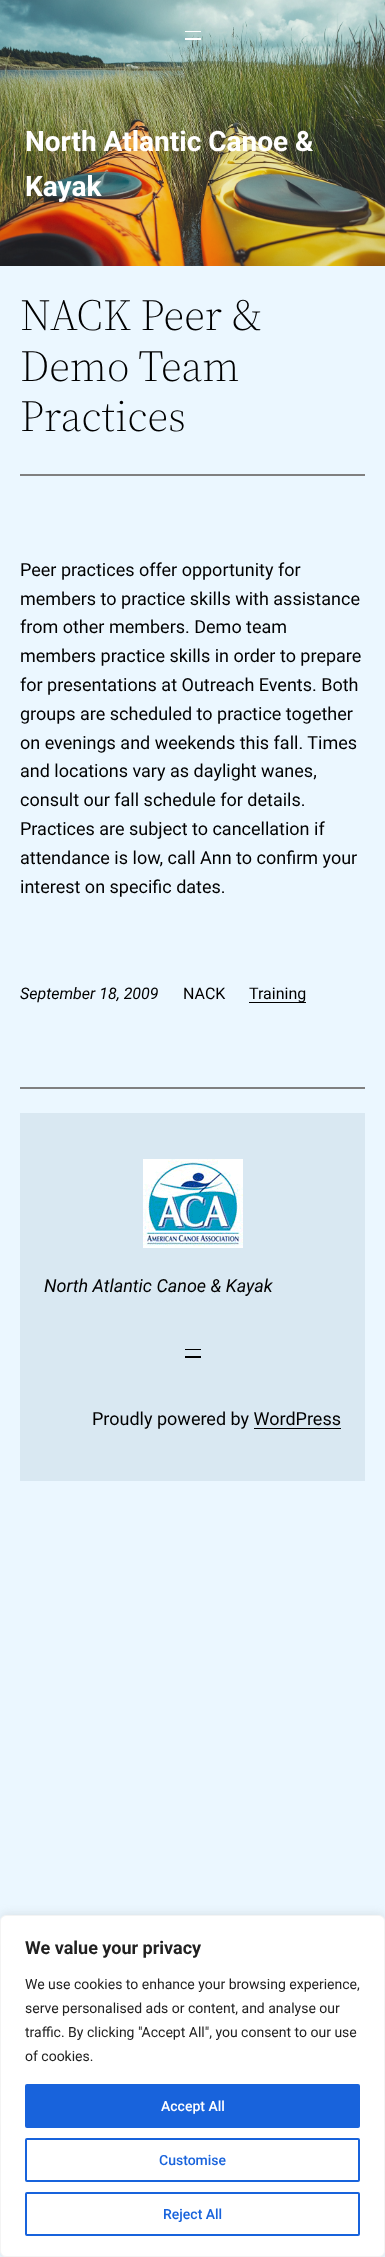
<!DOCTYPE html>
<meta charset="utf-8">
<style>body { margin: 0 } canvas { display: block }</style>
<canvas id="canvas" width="385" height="2257"></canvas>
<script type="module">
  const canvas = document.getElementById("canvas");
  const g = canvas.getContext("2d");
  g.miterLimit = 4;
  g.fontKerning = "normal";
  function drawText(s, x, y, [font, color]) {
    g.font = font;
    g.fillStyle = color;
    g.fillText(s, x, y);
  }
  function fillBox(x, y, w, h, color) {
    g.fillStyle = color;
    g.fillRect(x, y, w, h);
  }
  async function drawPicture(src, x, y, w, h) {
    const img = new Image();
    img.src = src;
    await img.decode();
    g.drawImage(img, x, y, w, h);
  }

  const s1 = ["bold 28px Roboto", "#FFFFFF"];
  const s2 = ["300 44px 'Source Serif 4'", "#000000"];
  const s3 = ["18px Roboto", "#000000"];
  const s4 = ["italic 16px Roboto", "#000000"];
  const s5 = ["16px Roboto", "#000000"];
  const s6 = ["italic 18px Roboto", "#000000"];
  const s7 = ["bold 18px Roboto", "#212121"];
  const s8 = ["14px Roboto", "#212121"];
  const s9 = ["500 14px Roboto", "#FFFFFF"];
  const s10 = ["500 14px Roboto", "#1863DC"];

  fillBox(0, 0, 385, 2257, "#EBF7FF");
  await drawPicture("pic1.png", 0, 0, 385, 266);
  fillBox(185, 31, 16, 1, "#FFFFFF");
  fillBox(185, 38, 16, 2, "#FFFFFF");
  drawText("North Atlantic Canoe &", 25, 151, s1);
  drawText("Kayak", 25, 196, s1);
  drawText("NACK Peer &", 20, 330, s2);
  drawText("Demo Team", 20, 381, s2);
  drawText("Practices", 20, 431, s2);
  fillBox(20, 474, 345, 2, "#808080");
  drawText("Peer practices offer opportunity for", 20, 576, s3);
  drawText("members to practice skills with assistance", 20, 605, s3);
  drawText("from other members. Demo team", 20, 633, s3);
  drawText("members practice skills in order to prepare", 20, 662, s3);
  drawText("for presentations at Outreach Events. Both", 20, 691, s3);
  drawText("groups are scheduled to practice together", 20, 720, s3);
  drawText("on evenings and weekends this fall. Times", 20, 749, s3);
  drawText("and locations vary as daylight wanes,", 20, 777, s3);
  drawText("consult our fall schedule for details.", 20, 806, s3);
  drawText("Practices are subject to cancellation if", 20, 835, s3);
  drawText("attendance is low, call Ann to confirm your", 20, 864, s3);
  drawText("interest on specific dates.", 20, 893, s3);
  drawText("September 18, 2009", 20, 999, s4);
  drawText("NACK", 183, 999, s5);
  fillBox(249, 1002, 57, 1, "#000000");
  drawText("Training", 249, 999, s5);
  fillBox(20, 1087, 345, 2, "#808080");
  fillBox(20, 1113, 345, 368, "#D9E8F2");
  await drawPicture("pic2.png", 143, 1159, 100, 89);
  drawText("North Atlantic Canoe & Kayak", 44, 1292, s6);
  fillBox(185, 1349, 16, 1, "#000000");
  fillBox(185, 1356, 16, 2, "#000000");
  drawText("Proudly powered by WordPress", 92, 1425, s3);
  fillBox(254, 1428, 87, 1, "#000000");
  g.fillStyle = "rgba(172, 171, 171, 0.3)";
  g.filter = "blur(5px)";
  g.beginPath();
  g.roundRect(0, 1914, 385, 342, 6);
  g.fill();
  g.filter = "none";
  g.fillStyle = "#FFFFFF";
  g.beginPath();
  g.roundRect(0.5, 1915.5, 384, 341, 5.5);
  g.fill();
  g.strokeStyle = "#F4F4F4";
  g.stroke();
  drawText("We value your privacy", 25, 1954, s7);
  drawText("We use cookies to enhance your browsing experience,", 25, 1989, s8);
  drawText("serve personalised ads or content, and analyse our", 25, 2013, s8);
  drawText("traffic. By clicking \"Accept All\", you consent to our use", 25, 2037, s8);
  drawText("of cookies.", 25, 2061, s8);
  g.fillStyle = "#1863DC";
  g.beginPath();
  g.roundRect(26, 2085, 333, 42, 1);
  g.fill();
  g.strokeStyle = "#1863DC";
  g.lineWidth = 2;
  g.stroke();
  drawText("Accept All", 161, 2111, s9);
  g.beginPath();
  g.roundRect(26, 2139, 333, 42, 1);
  g.stroke();
  drawText("Customise", 159, 2165, s10);
  g.beginPath();
  g.roundRect(26, 2193, 333, 42, 1);
  g.stroke();
  drawText("Reject All", 163, 2219, s10);
</script>
